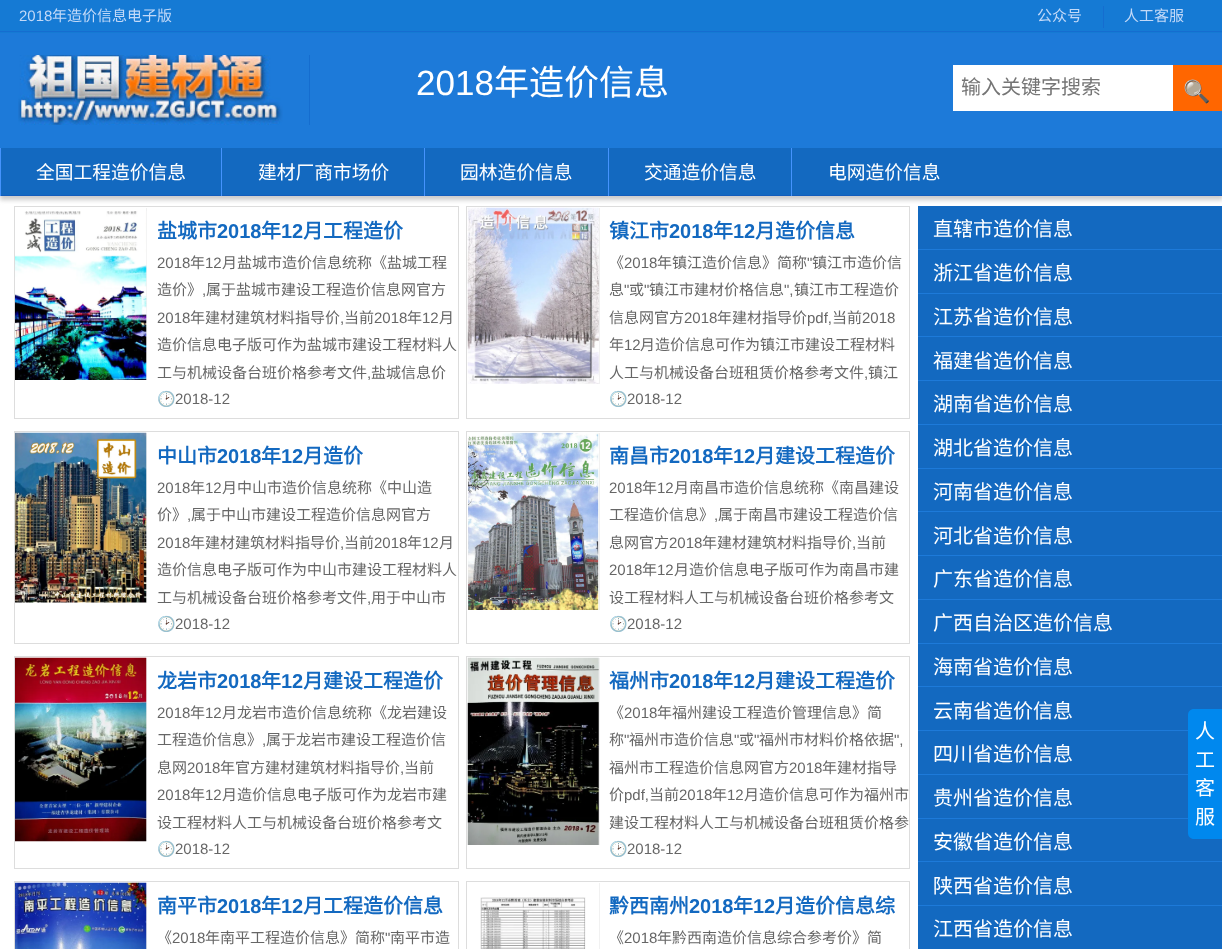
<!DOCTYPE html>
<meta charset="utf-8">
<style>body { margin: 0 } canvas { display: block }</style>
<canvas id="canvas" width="1222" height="949"></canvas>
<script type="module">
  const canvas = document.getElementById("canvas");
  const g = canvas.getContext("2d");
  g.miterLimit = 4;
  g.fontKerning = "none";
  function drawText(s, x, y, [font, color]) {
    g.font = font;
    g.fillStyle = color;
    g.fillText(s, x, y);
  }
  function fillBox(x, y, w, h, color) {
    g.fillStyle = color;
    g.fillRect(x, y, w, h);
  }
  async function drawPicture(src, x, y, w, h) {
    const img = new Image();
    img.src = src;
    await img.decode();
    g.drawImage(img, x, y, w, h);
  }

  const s1 = ["15px Liberation Sans", "#C2D9F8"];
  const s2 = ["15px Noto Sans CJK SC", "#C2D9F8"];
  const s3 = ["35px Liberation Sans", "#FFFFFF"];
  const s4 = ["35px Noto Sans CJK SC", "#FFFFFF"];
  const s5 = ["20px Noto Sans CJK SC", "#757575"];
  const s6 = ["bold 22px Noto Color Emoji", "#FFFFFF"];
  const s7 = ["18.75px Noto Sans CJK SC", "#FFFFFF"];
  const s8 = ["bold 20px Noto Sans CJK SC", "#1369C0"];
  const s9 = ["bold 20px Liberation Sans", "#1369C0"];
  const s10 = ["15px Liberation Sans", "#666666"];
  const s11 = ["15px Noto Sans CJK SC", "#666666"];
  const s12 = ["15px Noto Color Emoji", "#666666"];
  const s13 = ["20px Noto Sans CJK SC", "#FFFFFF"];

  fillBox(0, 0, 1222, 949, "#FFFFFF");
  g.fillStyle = "#CCCCCC";
  g.filter = "blur(2px)";
  g.beginPath();
  g.rect(0, 4, 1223, 196);
  g.fill();
  g.filter = "none";
  fillBox(0, 33, 1222, 115, "#1D7AD9");
  fillBox(0, 0, 1222, 33, "#157AD4");
  fillBox(0, 31, 1222, 1, "#156DCF");
  drawText("2018", 19, 21, s1);
  drawText("年造价信息电子版", 52, 21, s2);
  fillBox(1103, 6, 1, 22, "#156DCF");
  drawText("公众号", 1037, 21, s2);
  drawText("人工客服", 1124, 21, s2);
  fillBox(309, 55, 1, 70, "#156DCF");
  await drawPicture("pic1.png", 18, 55, 265, 70);
  drawText("2018", 416, 95, s3);
  drawText("年造价信息", 494, 95, s4);
  fillBox(953, 65, 220, 46, "#FFFFFF");
  drawText("输入关键字搜索", 961, 94, s5);
  fillBox(1173, 65, 49, 46, "#FF6600");
  drawText("🔍", 1183, 99, s6);
  fillBox(1, 148, 1221, 47, "#1369C0");
  fillBox(0, 195, 1222, 1, "#135DBC");
  fillBox(0, 148, 1, 48, "#4593FD");
  drawText("全国工程造价信息", 36, 179, s7);
  fillBox(221, 148, 1, 48, "#4593FD");
  drawText("建材厂商市场价", 258, 179, s7);
  fillBox(424, 148, 1, 48, "#4593FD");
  drawText("园林造价信息", 460, 179, s7);
  fillBox(608, 148, 1, 48, "#4593FD");
  drawText("交通造价信息", 644, 179, s7);
  fillBox(791, 148, 1, 48, "#4593FD");
  drawText("电网造价信息", 828, 179, s7);
  g.strokeStyle = "#DDDDDD";
  g.strokeRect(14.5, 206.5, 444, 212);
  fillBox(146, 208, 1, 172, "#F1F1F1");
  await drawPicture("pic2.png", 15, 211, 132, 169);
  drawText("盐城市", 157, 238, s8);
  drawText("2018", 217, 238, s9);
  drawText("年", 261, 238, s8);
  drawText("12", 281, 238, s9);
  drawText("月工程造价", 303, 238, s8);
  drawText("2018", 157, 268, s10);
  drawText("年", 190, 268, s11);
  drawText("12", 205, 268, s10);
  drawText("月盐城市造价信息统称《盐城工程", 222, 268, s11);
  drawText("造价》", 157, 295, s11);
  drawText(",", 202, 295, s10);
  drawText("属于盐城市建设工程造价信息网官方", 206, 295, s11);
  drawText("2018", 157, 323, s10);
  drawText("年建材建筑材料指导价", 190, 323, s11);
  drawText(",", 340, 323, s10);
  drawText("当前", 344, 323, s11);
  drawText("2018", 374, 323, s10);
  drawText("年", 407, 323, s11);
  drawText("12", 422, 323, s10);
  drawText("月", 439, 323, s11);
  drawText("造价信息电子版可作为盐城市建设工程材料人", 157, 350, s11);
  drawText("工与机械设备台班价格参考文件", 157, 378, s11);
  drawText(",", 367, 378, s10);
  drawText("盐城信息价", 371, 378, s11);
  drawText("🕑", 157, 404, s12);
  drawText("2018-12", 175, 404, s10);
  g.strokeRect(466.5, 206.5, 443, 212);
  await drawPicture("pic3.png", 467, 207, 132, 177);
  fillBox(599, 208, 1, 176, "#F1F1F1");
  drawText("镇江市", 609, 238, s8);
  drawText("2018", 669, 238, s9);
  drawText("年", 713, 238, s8);
  drawText("12", 733, 238, s9);
  drawText("月造价信息", 755, 238, s8);
  drawText("《", 609, 268, s11);
  drawText("2018", 624, 268, s10);
  drawText("年镇江造价信息》简称", 657, 268, s11);
  drawText("\"", 807, 268, s10);
  drawText("镇江市造价信", 812, 268, s11);
  drawText("息", 609, 295, s11);
  drawText("\"", 624, 295, s10);
  drawText("或", 629, 295, s11);
  drawText("\"", 644, 295, s10);
  drawText("镇江市建材价格信息", 649, 295, s11);
  drawText("\",", 784, 295, s10);
  drawText("镇江市工程造价", 794, 295, s11);
  drawText("信息网官方", 609, 323, s11);
  drawText("2018", 684, 323, s10);
  drawText("年建材指导价", 717, 323, s11);
  drawText("pdf,", 807, 323, s10);
  drawText("当前", 832, 323, s11);
  drawText("2018", 862, 323, s10);
  drawText("年", 609, 350, s11);
  drawText("12", 624, 350, s10);
  drawText("月造价信息可作为镇江市建设工程材料", 640, 350, s11);
  drawText("人工与机械设备台班租赁价格参考文件", 609, 378, s11);
  drawText(",", 864, 378, s10);
  drawText("镇江", 868, 378, s11);
  g.save();
  g.beginPath();
  g.rect(609, 386, 300, 27);
  g.clip();
  drawText("🕑", 609, 404, s12);
  g.restore();
  drawText("2018-12", 627, 404, s10);
  g.strokeRect(14.5, 431.5, 444, 212);
  fillBox(146, 433, 1, 170, "#F1F1F1");
  await drawPicture("pic4.png", 15, 432, 132, 171);
  drawText("中山市", 157, 463, s8);
  drawText("2018", 217, 463, s9);
  drawText("年", 261, 463, s8);
  drawText("12", 281, 463, s9);
  drawText("月造价", 303, 463, s8);
  drawText("2018", 157, 493, s10);
  drawText("年", 190, 493, s11);
  drawText("12", 205, 493, s10);
  drawText("月中山市造价信息统称《中山造", 222, 493, s11);
  drawText("价》", 157, 520, s11);
  drawText(",", 187, 520, s10);
  drawText("属于中山市建设工程造价信息网官方", 191, 520, s11);
  drawText("2018", 157, 548, s10);
  drawText("年建材建筑材料指导价", 190, 548, s11);
  drawText(",", 340, 548, s10);
  drawText("当前", 344, 548, s11);
  drawText("2018", 374, 548, s10);
  drawText("年", 407, 548, s11);
  drawText("12", 422, 548, s10);
  drawText("月", 439, 548, s11);
  drawText("造价信息电子版可作为中山市建设工程材料人", 157, 575, s11);
  drawText("工与机械设备台班价格参考文件", 157, 603, s11);
  drawText(",", 367, 603, s10);
  drawText("用于中山市", 371, 603, s11);
  drawText("🕑", 157, 629, s12);
  drawText("2018-12", 175, 629, s10);
  g.strokeRect(466.5, 431.5, 443, 212);
  await drawPicture("pic5.png", 467, 432, 132, 178);
  fillBox(599, 433, 1, 177, "#F1F1F1");
  drawText("南昌市", 609, 463, s8);
  drawText("2018", 669, 463, s9);
  drawText("年", 713, 463, s8);
  drawText("12", 733, 463, s9);
  drawText("月建设工程造价", 755, 463, s8);
  drawText("2018", 609, 493, s10);
  drawText("年", 642, 493, s11);
  drawText("12", 657, 493, s10);
  drawText("月南昌市造价信息统称《南昌建设", 674, 493, s11);
  drawText("工程造价信息》", 609, 520, s11);
  drawText(",", 714, 520, s10);
  drawText("属于南昌市建设工程造价信", 718, 520, s11);
  drawText("息网官方", 609, 548, s11);
  drawText("2018", 669, 548, s10);
  drawText("年建材建筑材料指导价", 702, 548, s11);
  drawText(",", 852, 548, s10);
  drawText("当前", 856, 548, s11);
  drawText("2018", 609, 575, s10);
  drawText("年", 642, 575, s11);
  drawText("12", 657, 575, s10);
  drawText("月造价信息电子版可作为南昌市建", 674, 575, s11);
  drawText("设工程材料人工与机械设备台班价格参考文", 609, 603, s11);
  g.save();
  g.beginPath();
  g.rect(609, 611, 300, 27);
  g.clip();
  drawText("🕑", 609, 629, s12);
  g.restore();
  drawText("2018-12", 627, 629, s10);
  g.strokeRect(14.5, 656.5, 444, 212);
  fillBox(146, 658, 1, 183, "#F1F1F1");
  await drawPicture("pic6.png", 15, 657, 132, 185);
  drawText("龙岩市", 157, 688, s8);
  drawText("2018", 217, 688, s9);
  drawText("年", 261, 688, s8);
  drawText("12", 281, 688, s9);
  drawText("月建设工程造价", 303, 688, s8);
  drawText("2018", 157, 718, s10);
  drawText("年", 190, 718, s11);
  drawText("12", 205, 718, s10);
  drawText("月龙岩市造价信息统称《龙岩建设", 222, 718, s11);
  drawText("工程造价信息》", 157, 745, s11);
  drawText(",", 262, 745, s10);
  drawText("属于龙岩市建设工程造价信", 266, 745, s11);
  drawText("息网", 157, 773, s11);
  drawText("2018", 187, 773, s10);
  drawText("年官方建材建筑材料指导价", 220, 773, s11);
  drawText(",", 400, 773, s10);
  drawText("当前", 404, 773, s11);
  drawText("2018", 157, 800, s10);
  drawText("年", 190, 800, s11);
  drawText("12", 205, 800, s10);
  drawText("月造价信息电子版可作为龙岩市建", 222, 800, s11);
  drawText("设工程材料人工与机械设备台班价格参考文", 157, 828, s11);
  drawText("🕑", 157, 854, s12);
  drawText("2018-12", 175, 854, s10);
  g.strokeRect(466.5, 656.5, 443, 212);
  await drawPicture("pic7.png", 467, 657, 132, 188);
  fillBox(599, 658, 1, 187, "#F1F1F1");
  drawText("福州市", 609, 688, s8);
  drawText("2018", 669, 688, s9);
  drawText("年", 713, 688, s8);
  drawText("12", 733, 688, s9);
  drawText("月建设工程造价", 755, 688, s8);
  drawText("《", 609, 718, s11);
  drawText("2018", 624, 718, s10);
  drawText("年福州建设工程造价管理信息》简", 657, 718, s11);
  drawText("称", 609, 745, s11);
  drawText("\"", 624, 745, s10);
  drawText("福州市造价信息", 629, 745, s11);
  drawText("\"", 734, 745, s10);
  drawText("或", 739, 745, s11);
  drawText("\"", 754, 745, s10);
  drawText("福州市材料价格依据", 759, 745, s11);
  drawText("\",", 894, 745, s10);
  drawText("福州市工程造价信息网官方", 609, 773, s11);
  drawText("2018", 789, 773, s10);
  drawText("年建材指导", 822, 773, s11);
  drawText("价", 609, 800, s11);
  drawText("pdf,", 624, 800, s10);
  drawText("当前", 649, 800, s11);
  drawText("2018", 679, 800, s10);
  drawText("年", 712, 800, s11);
  drawText("12", 727, 800, s10);
  drawText("月造价信息可作为福州市", 744, 800, s11);
  drawText("建设工程材料人工与机械设备台班租赁价格参", 609, 828, s11);
  g.save();
  g.beginPath();
  g.rect(609, 836, 300, 27);
  g.clip();
  drawText("🕑", 609, 854, s12);
  g.restore();
  drawText("2018-12", 627, 854, s10);
  g.strokeRect(14.5, 881.5, 444, 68);
  fillBox(146, 883, 1, 66, "#F1F1F1");
  await drawPicture("pic8.png", 15, 882, 132, 67);
  drawText("南平市", 157, 913, s8);
  drawText("2018", 217, 913, s9);
  drawText("年", 261, 913, s8);
  drawText("12", 281, 913, s9);
  drawText("月工程造价信息", 303, 913, s8);
  drawText("《", 157, 943, s11);
  drawText("2018", 172, 943, s10);
  drawText("年南平工程造价信息》简称", 205, 943, s11);
  drawText("\"", 385, 943, s10);
  drawText("南平市造", 390, 943, s11);
  g.strokeRect(466.5, 881.5, 443, 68);
  await drawPicture("pic9.png", 480, 897, 106, 52);
  fillBox(599, 883, 1, 66, "#F1F1F1");
  drawText("黔西南州", 609, 913, s8);
  drawText("2018", 689, 913, s9);
  drawText("年", 733, 913, s8);
  drawText("12", 753, 913, s9);
  drawText("月造价信息综", 775, 913, s8);
  drawText("《", 609, 943, s11);
  drawText("2018", 624, 943, s10);
  drawText("年黔西南造价信息综合参考价》简", 657, 943, s11);
  fillBox(918, 206, 304, 743, "#1369C0");
  fillBox(918, 249, 304, 1, "#1D7AD9");
  drawText("直辖市造价信息", 933, 236, s13);
  fillBox(918, 293, 304, 1, "#1D7AD9");
  drawText("浙江省造价信息", 933, 280, s13);
  fillBox(918, 336, 304, 1, "#1D7AD9");
  drawText("江苏省造价信息", 933, 324, s13);
  fillBox(918, 380, 304, 1, "#1D7AD9");
  drawText("福建省造价信息", 933, 368, s13);
  fillBox(918, 424, 304, 1, "#1D7AD9");
  drawText("湖南省造价信息", 933, 411, s13);
  fillBox(918, 468, 304, 1, "#1D7AD9");
  drawText("湖北省造价信息", 933, 455, s13);
  fillBox(918, 511, 304, 1, "#1D7AD9");
  drawText("河南省造价信息", 933, 499, s13);
  fillBox(918, 555, 304, 1, "#1D7AD9");
  drawText("河北省造价信息", 933, 543, s13);
  fillBox(918, 599, 304, 1, "#1D7AD9");
  drawText("广东省造价信息", 933, 586, s13);
  fillBox(918, 643, 304, 1, "#1D7AD9");
  drawText("广西自治区造价信息", 933, 630, s13);
  fillBox(918, 686, 304, 1, "#1D7AD9");
  drawText("海南省造价信息", 933, 674, s13);
  fillBox(918, 730, 270, 1, "#1D7AD9");
  drawText("云南省造价信息", 933, 718, s13);
  fillBox(918, 774, 270, 1, "#1D7AD9");
  drawText("四川省造价信息", 933, 761, s13);
  fillBox(918, 818, 270, 1, "#1D7AD9");
  drawText("贵州省造价信息", 933, 805, s13);
  fillBox(918, 861, 304, 1, "#1D7AD9");
  drawText("安徽省造价信息", 933, 849, s13);
  fillBox(918, 905, 304, 1, "#1D7AD9");
  drawText("陕西省造价信息", 933, 893, s13);
  drawText("江西省造价信息", 933, 936, s13);
  g.fillStyle = "#0088EE";
  g.beginPath();
  g.moveTo(1194, 709);
  g.lineTo(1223, 709);
  g.lineTo(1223, 839);
  g.lineTo(1194, 839);
  g.bezierCurveTo(1190.5, 839, 1188, 836.5, 1188, 833);
  g.lineTo(1188, 715);
  g.bezierCurveTo(1188, 711.5, 1190.5, 709, 1194, 709);
  g.closePath();
  g.fill();
  drawText("人", 1195, 738, s13);
  drawText("工", 1195, 767, s13);
  drawText("客", 1195, 795, s13);
  drawText("服", 1195, 824, s13);
</script>
